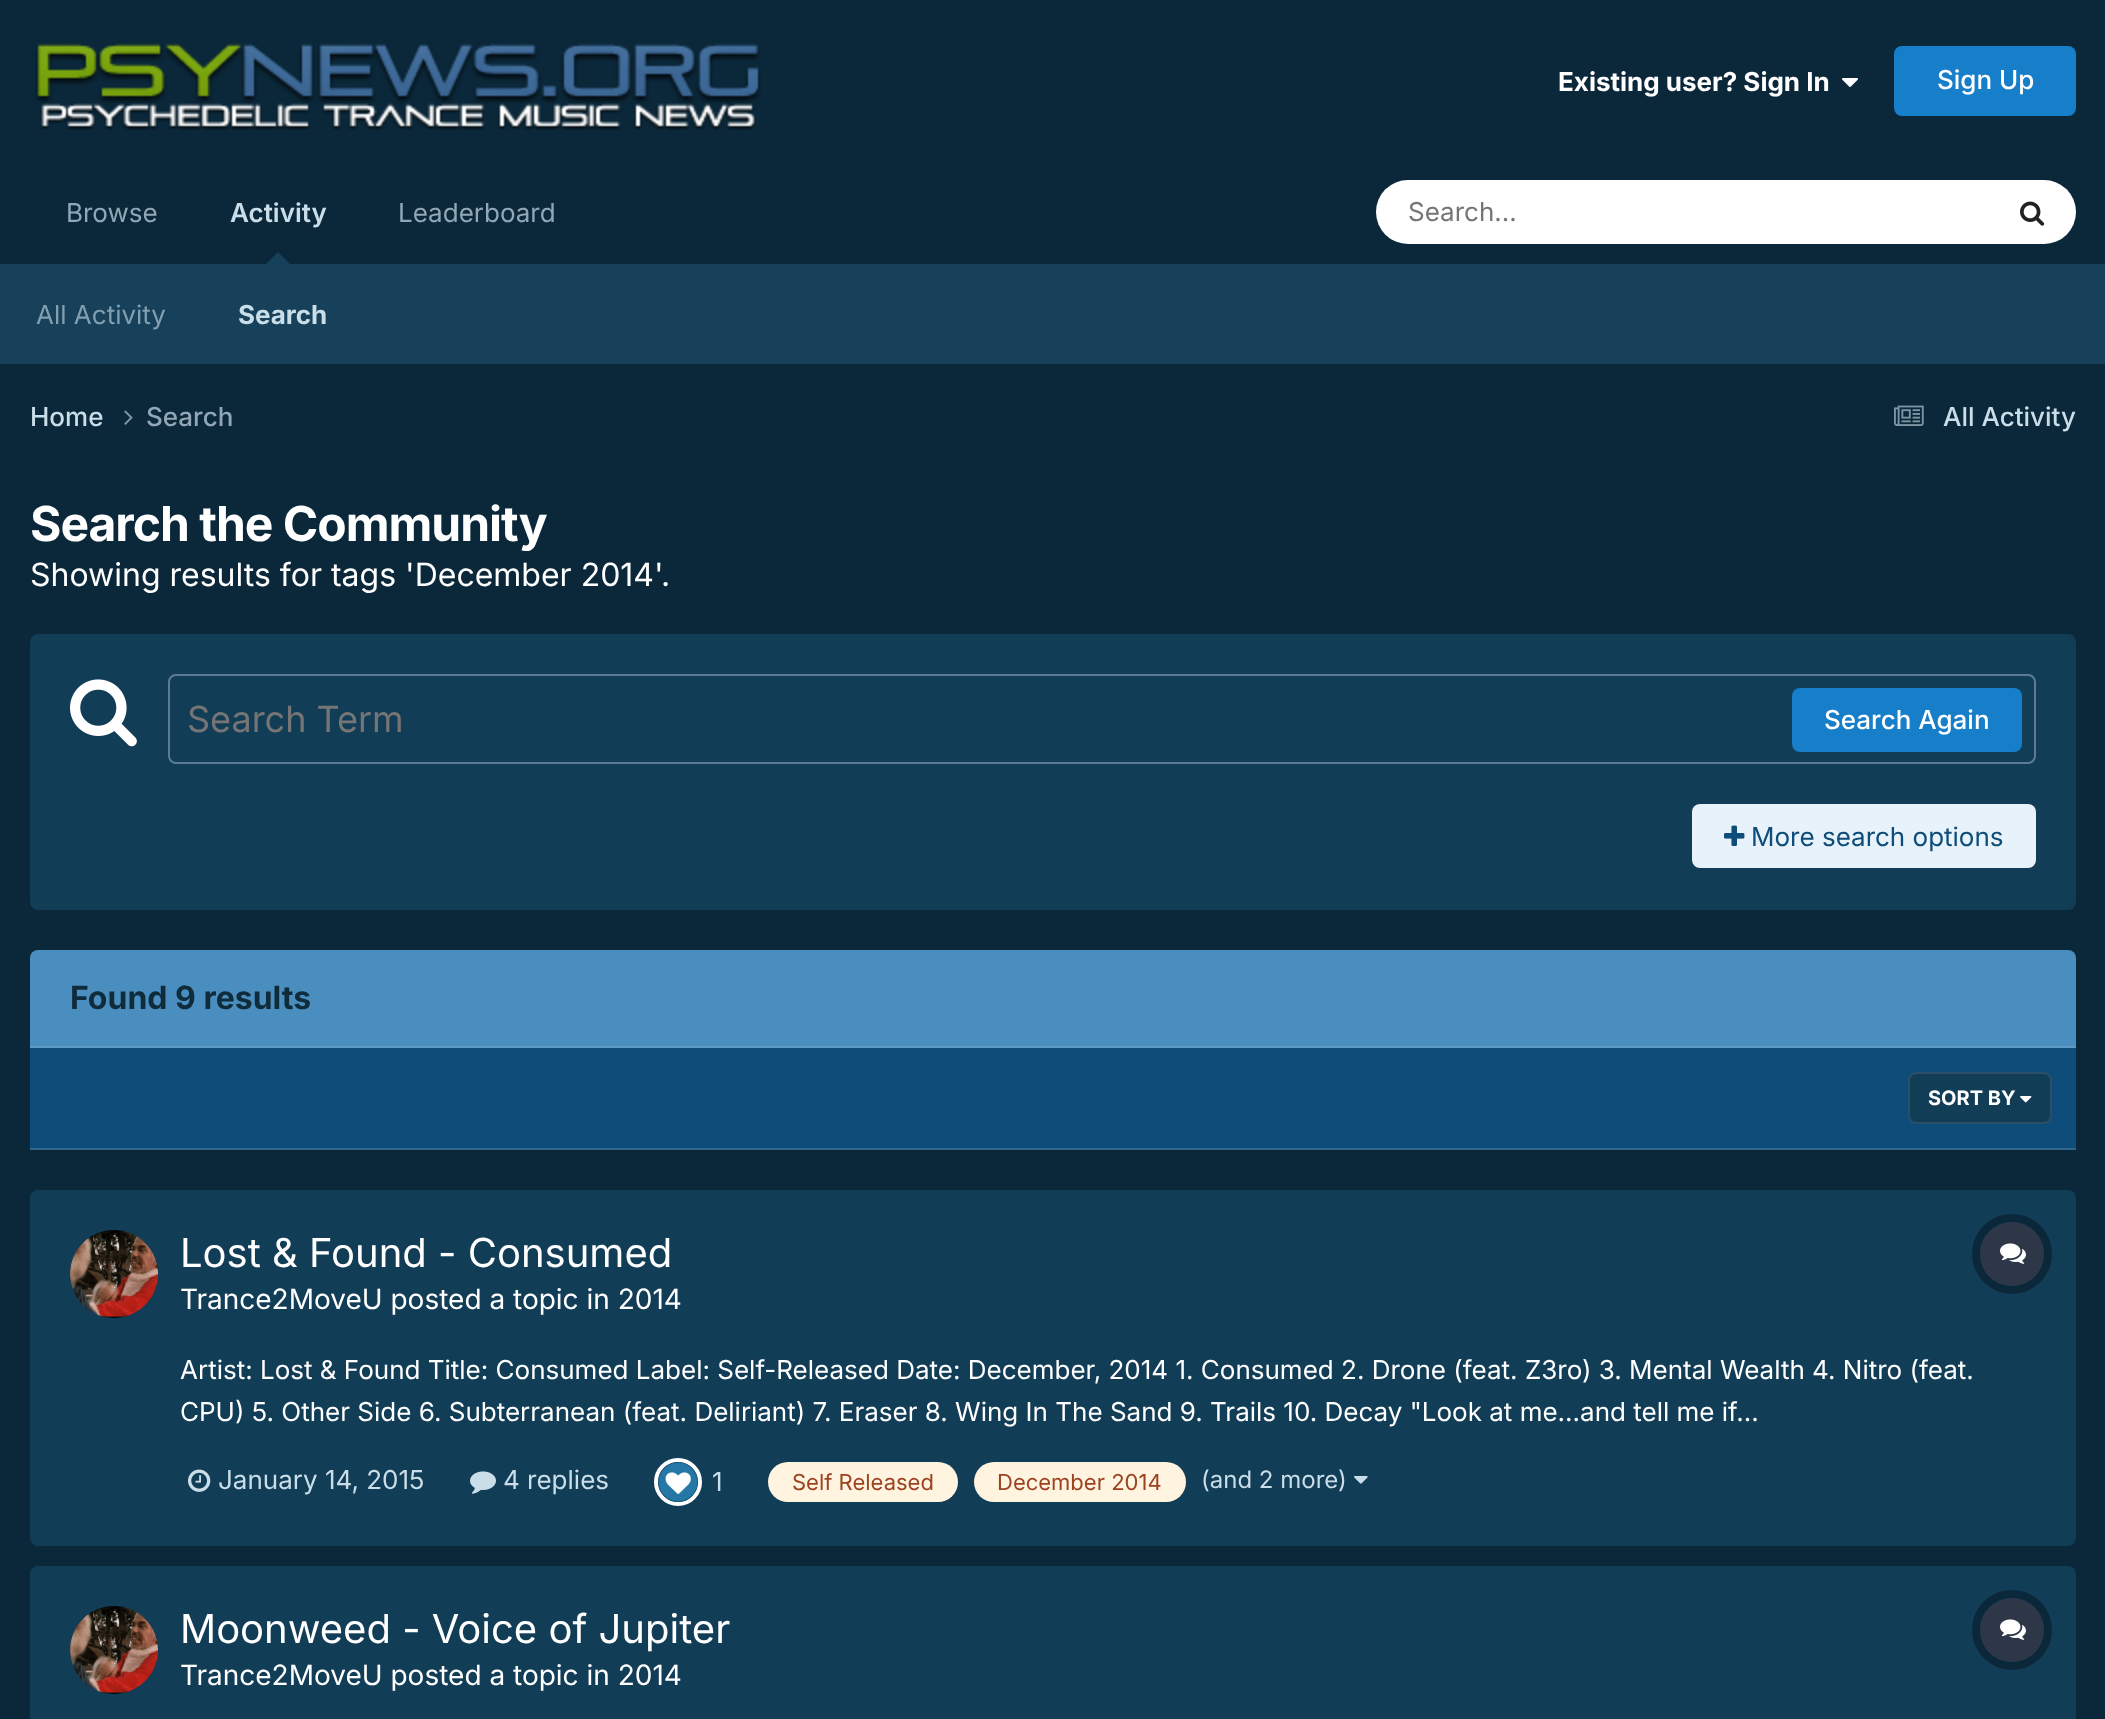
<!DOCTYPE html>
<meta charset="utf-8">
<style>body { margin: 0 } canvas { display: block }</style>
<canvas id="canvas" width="2105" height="1719"></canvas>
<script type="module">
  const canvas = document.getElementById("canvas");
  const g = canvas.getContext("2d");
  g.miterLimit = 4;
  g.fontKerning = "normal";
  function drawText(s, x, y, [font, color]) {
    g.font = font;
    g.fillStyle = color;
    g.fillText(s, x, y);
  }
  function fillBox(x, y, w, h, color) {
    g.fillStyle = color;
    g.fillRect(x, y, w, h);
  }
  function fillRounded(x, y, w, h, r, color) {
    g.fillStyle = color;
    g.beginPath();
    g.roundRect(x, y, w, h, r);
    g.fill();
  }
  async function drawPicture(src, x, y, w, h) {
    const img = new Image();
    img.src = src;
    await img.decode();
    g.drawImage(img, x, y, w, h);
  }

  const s1 = ["bold 26px Inter", "#FFFFFF"];
  const s2 = ["500 26px Inter", "#FFFFFF"];
  const s3 = ["600 26px Inter", "#CADEE9"];
  const s4 = ["26px Inter", "#829FB0"];
  const s5 = ["bold 26px Inter", "#CADEE9"];
  const s6 = ["26px Inter", "#91A7B5"];
  const s7 = ["26px Inter", "#757575"];
  const s8 = ["500 26px Inter", "#CADEE9"];
  const s9 = ["500 26px Inter", "#91A7B5"];
  const s10 = ["bold 48px Inter", "#FFFFFF"];
  const s11 = ["32px Inter", "#FFFFFF"];
  const s12 = ["36px Inter", "#757575"];
  const s13 = ["26px Inter", "#0E4C79"];
  const s14 = ["bold 32px Inter", "#102B3A"];
  const s15 = ["bold 20px Inter", "#FFFFFF"];
  const s16 = ["40px Inter", "#FFFFFF"];
  const s17 = ["28px Inter", "#FFFFFF"];
  const s18 = ["26px Inter", "#FFFFFF"];
  const s19 = ["26px Inter", "#CADEE9"];
  const s20 = ["22px Inter", "#9C4221"];
  const s21 = ["24px Inter", "#CADEE9"];

  fillBox(0, 0, 2105, 1719, "#0B283A");
  await drawPicture("pic1.png", 35, 43, 726, 87);
  drawText("Existing user? Sign In", 1558, 91, s1);
  await drawPicture("pic2.png", 1842, 78, 16, 9);
  fillRounded(1894, 46, 182, 70, 8, "#177EC9");
  drawText("Sign Up", 1937, 89, s2);
  drawText("Activity", 230, 222, s3);
  g.fillStyle = "#17415A";
  g.beginPath();
  g.moveTo(290, 264);
  g.lineTo(266, 264);
  g.lineTo(278, 252);
  g.closePath();
  g.fill();
  fillBox(0, 264, 2105, 100, "#17415A");
  drawText("All Activity", 36, 324, s4);
  drawText("Search", 238, 324, s5);
  drawText("Browse", 66, 222, s6);
  drawText("Leaderboard", 398, 222, s6);
  fillRounded(1376, 180, 700, 64, 32, "#FFFFFF");
  drawText("Search...", 1408, 221, s7);
  await drawPicture("pic3.png", 2020, 201, 25, 25);
  drawText("Home", 30, 426, s8);
  await drawPicture("pic4.png", 124, 410, 9, 15);
  drawText("Search", 146, 426, s9);
  await drawPicture("pic5.png", 1894, 405, 30, 21);
  drawText("All Activity", 1943, 426, s8);
  g.letterSpacing = "-1px";
  drawText("Search the Community", 30, 541, s10);
  g.letterSpacing = "0px";
  drawText("Showing results for tags 'December 2014'.", 30, 586, s11);
  fillRounded(30, 634, 2046, 276, 8, "#123D57");
  await drawPicture("pic6.png", 70, 679, 67, 68);
  g.beginPath();
  g.roundRect(169, 675, 1866, 88, 7);
  g.strokeStyle = "#5C7D91";
  g.lineWidth = 2;
  g.stroke();
  drawText("Search Term", 187, 732, s12);
  fillRounded(1792, 688, 230, 64, 8, "#177EC9");
  drawText("Search Again", 1824, 729, s2);
  fillRounded(1692, 804, 344, 64, 8, "#E8F2FA");
  await drawPicture("pic7.png", 1724, 825, 21, 21);
  drawText("More search options", 1751, 846, s13);
  g.fillStyle = "#4A8EC0";
  g.beginPath();
  g.roundRect(30, 950, 2046, 98, [8, 8, 0, 0]);
  g.fill();
  fillBox(30, 1046, 2046, 2, "#5D9AC6");
  drawText("Found 9 results", 70, 1009, s14);
  fillBox(30, 1048, 2046, 100, "#0E4C79");
  fillBox(30, 1148, 2046, 2, "#32678D");
  fillRounded(1908, 1072, 144, 52, 8, "#123D57");
  await drawPicture("pic8.png", 2020, 1096, 12, 7);
  g.beginPath();
  g.roundRect(1909, 1073, 142, 50, 7);
  g.strokeStyle = "rgba(255, 255, 255, 0.1)";
  g.stroke();
  drawText("SORT BY", 1928, 1105, s15);
  fillRounded(30, 1190, 2046, 356, 8, "#123D57");
  await drawPicture("pic9.png", 70, 1230, 88, 88);
  drawText("Lost & Found - Consumed", 180, 1267, s16);
  drawText("Trance2MoveU posted a topic in 2014", 180, 1309, s17);
  g.beginPath();
  g.arc(2012, 1254, 36, 0, Math.PI * 2);
  g.strokeStyle = "#0B283A";
  g.lineWidth = 8;
  g.stroke();
  g.fillStyle = "#2D3748";
  g.beginPath();
  g.arc(2012, 1254, 32, 0, Math.PI * 2);
  g.fill();
  await drawPicture("pic10.png", 2000, 1243, 26, 21);
  drawText("Artist: Lost & Found Title: Consumed Label: Self-Released Date: December, 2014 1. Consumed 2. Drone (feat. Z3ro) 3. Mental Wealth 4. Nitro (feat.", 180, 1379, s18);
  drawText("CPU) 5. Other Side 6. Subterranean (feat. Deliriant) 7. Eraser 8. Wing In The Sand 9. Trails 10. Decay \"Look at me...and tell me if...", 180, 1421, s18);
  await drawPicture("pic11.png", 188, 1469, 23, 23);
  drawText("January 14, 2015", 218, 1489, s19);
  await drawPicture("pic12.png", 470, 1471, 26, 23);
  drawText("4 replies", 503, 1489, s19);
  g.beginPath();
  g.arc(678, 1482, 22, 0, Math.PI * 2);
  g.strokeStyle = "#FFFFFF";
  g.lineWidth = 4;
  g.stroke();
  await drawPicture("pic13.png", 658, 1462, 40, 40);
  drawText("1", 712, 1491, s19);
  fillRounded(768, 1462, 190, 40, 20, "#FFF4DF");
  drawText("Self Released", 792, 1490, s20);
  fillRounded(974, 1462, 212, 40, 20, "#FFF4DF");
  drawText("December 2014", 997, 1490, s20);
  drawText("(and 2 more)", 1201, 1488, s21);
  await drawPicture("pic14.png", 1354, 1476, 14, 8);
  fillRounded(30, 1566, 2046, 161, 8, "#123D57");
  await drawPicture("pic15.png", 70, 1606, 88, 88);
  drawText("Moonweed - Voice of Jupiter", 180, 1643, s16);
  drawText("Trance2MoveU posted a topic in 2014", 180, 1685, s17);
  g.beginPath();
  g.arc(2012, 1630, 36, 0, Math.PI * 2);
  g.strokeStyle = "#0B283A";
  g.lineWidth = 8;
  g.stroke();
  g.fillStyle = "#2D3748";
  g.beginPath();
  g.arc(2012, 1630, 32, 0, Math.PI * 2);
  g.fill();
  await drawPicture("pic10.png", 2000, 1619, 26, 21);
</script>
